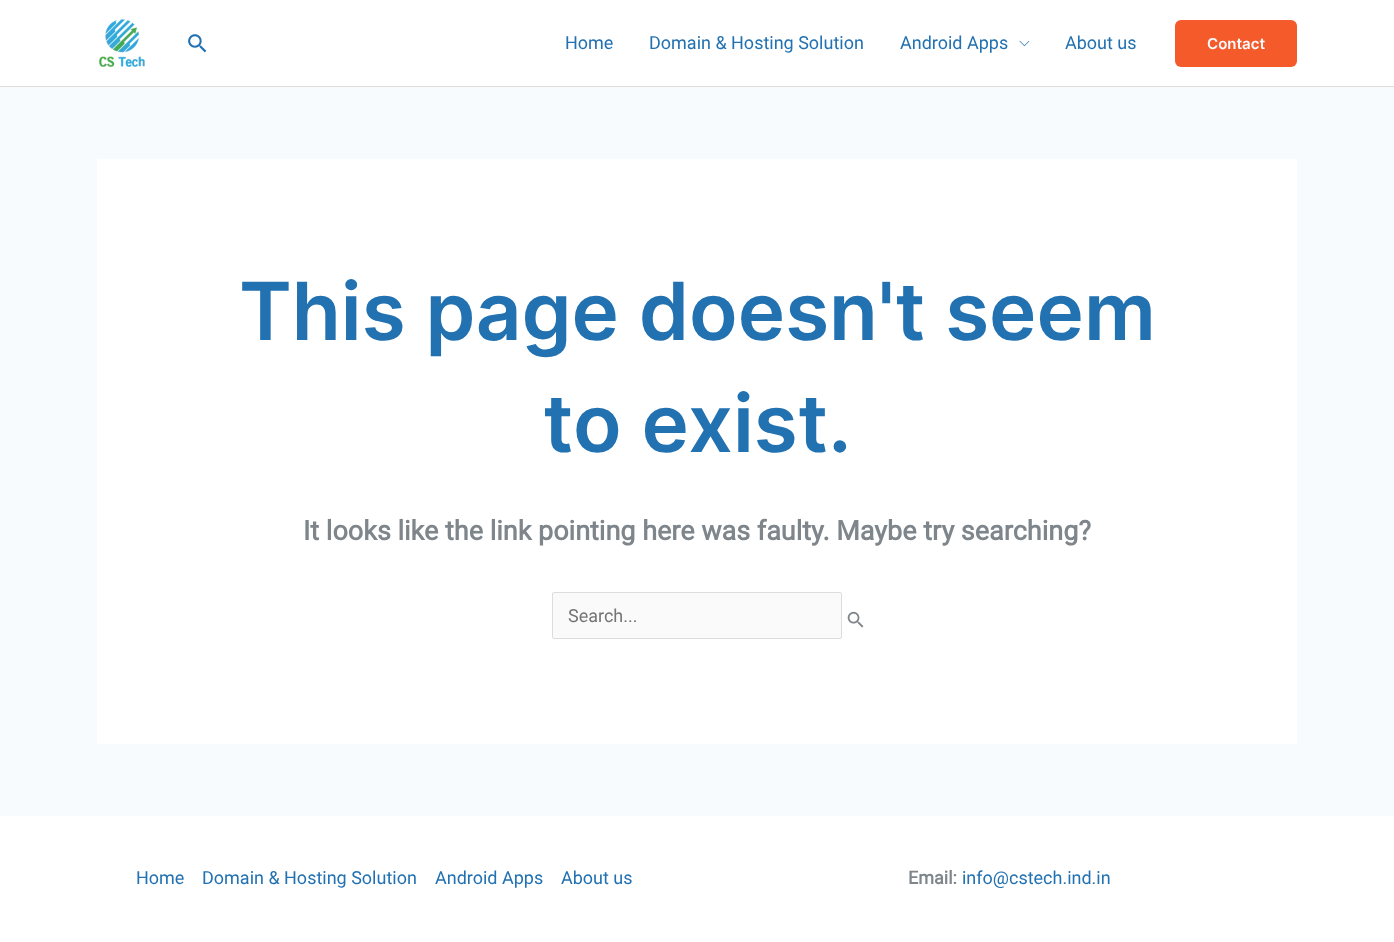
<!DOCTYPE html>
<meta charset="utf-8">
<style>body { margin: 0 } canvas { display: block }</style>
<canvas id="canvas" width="1394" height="942"></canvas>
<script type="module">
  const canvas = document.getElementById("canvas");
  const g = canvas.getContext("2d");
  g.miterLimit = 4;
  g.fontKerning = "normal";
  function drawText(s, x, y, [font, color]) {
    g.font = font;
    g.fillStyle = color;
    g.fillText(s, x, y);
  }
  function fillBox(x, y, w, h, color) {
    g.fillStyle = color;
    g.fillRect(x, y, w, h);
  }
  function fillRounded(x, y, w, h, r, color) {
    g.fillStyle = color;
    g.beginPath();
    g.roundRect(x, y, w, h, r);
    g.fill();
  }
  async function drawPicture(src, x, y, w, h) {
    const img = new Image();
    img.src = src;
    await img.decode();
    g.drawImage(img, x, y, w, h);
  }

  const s1 = ["18px Roboto", "#2271B1"];
  const s2 = ["600 15px Inter", "#F8FBFE"];
  const s3 = ["600 80px Inter", "#2271B1"];
  const s4 = ["bold 27px Roboto", "#7E868C"];
  const s5 = ["18px Roboto", "#757575"];
  const s6 = ["bold 18px Roboto", "#7E868C"];

  fillBox(0, 0, 1394, 942, "#F8FBFE");
  fillBox(0, 0, 1394, 86, "#FFFFFF");
  fillBox(0, 86, 1394, 1, "#DDDDDD");
  await drawPicture("pic1.png", 99, 19, 46, 48);
  await drawPicture("pic2.png", 188, 34, 19, 19);
  drawText("Home", 565, 49, s1);
  drawText("Domain & Hosting Solution", 649, 49, s1);
  drawText("Android Apps", 900, 49, s1);
  await drawPicture("pic3.png", 1019, 40, 11, 7);
  drawText("About us", 1065, 49, s1);
  fillRounded(1175, 20, 122, 47, 6, "#F45A2A");
  drawText("Contact", 1207, 49, s2);
  fillBox(97, 159, 1200, 585, "#FFFFFF");
  drawText("This page doesn't seem", 239, 340, s3);
  drawText("to exist.", 543, 452, s3);
  drawText("It looks like the link pointing here was faulty. Maybe try searching?", 303, 540, s4);
  g.fillStyle = "#FAFAFA";
  g.beginPath();
  g.roundRect(552.5, 592.5, 289, 46, 1.5);
  g.fill();
  g.strokeStyle = "#DDDDDD";
  g.stroke();
  drawText("Search...", 568, 622, s5);
  await drawPicture("pic4.png", 847, 611, 17, 17);
  fillBox(0, 816, 1394, 126, "#FFFFFF");
  drawText("Home", 136, 884, s1);
  drawText("Domain & Hosting Solution", 202, 884, s1);
  drawText("Android Apps", 435, 884, s1);
  drawText("About us", 561, 884, s1);
  drawText("Email:", 908, 884, s6);
  drawText("info@cstech.ind.in", 962, 884, s1);
</script>
